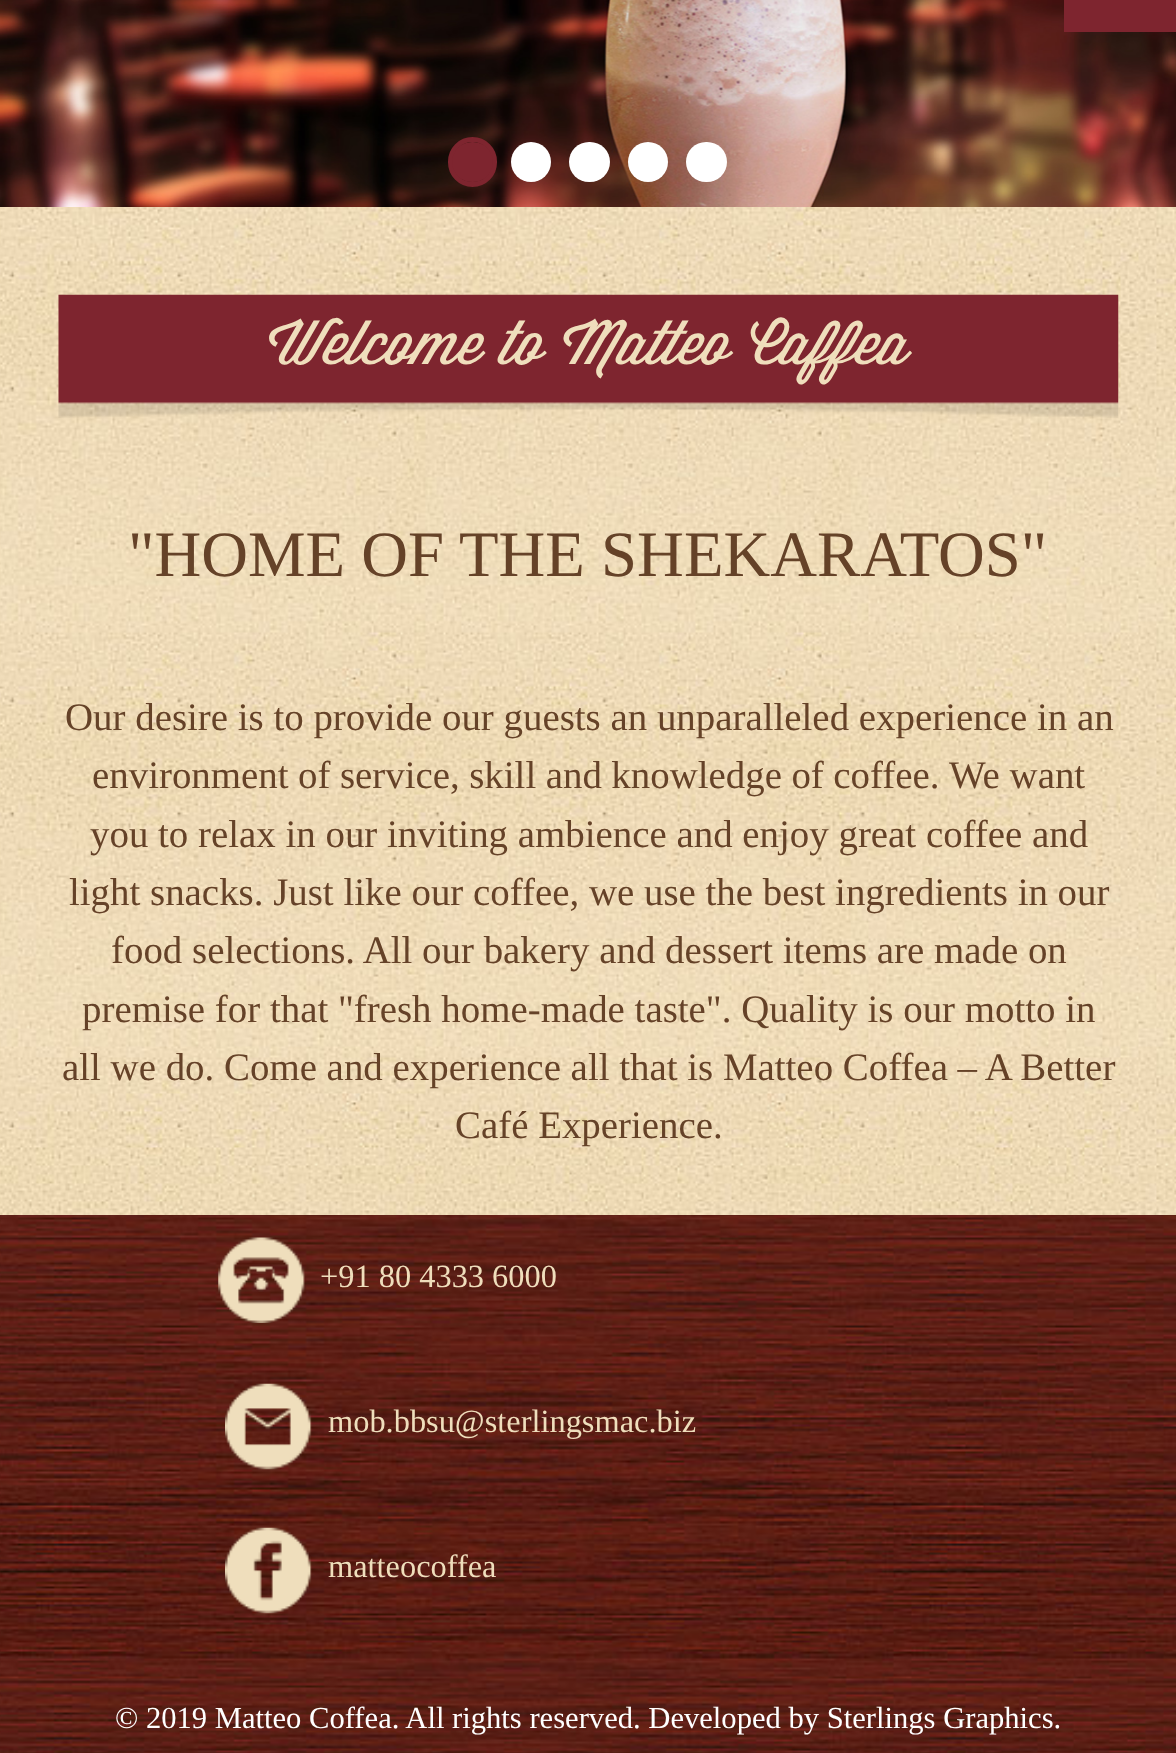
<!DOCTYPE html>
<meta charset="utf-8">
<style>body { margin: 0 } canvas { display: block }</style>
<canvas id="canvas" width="1176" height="1753"></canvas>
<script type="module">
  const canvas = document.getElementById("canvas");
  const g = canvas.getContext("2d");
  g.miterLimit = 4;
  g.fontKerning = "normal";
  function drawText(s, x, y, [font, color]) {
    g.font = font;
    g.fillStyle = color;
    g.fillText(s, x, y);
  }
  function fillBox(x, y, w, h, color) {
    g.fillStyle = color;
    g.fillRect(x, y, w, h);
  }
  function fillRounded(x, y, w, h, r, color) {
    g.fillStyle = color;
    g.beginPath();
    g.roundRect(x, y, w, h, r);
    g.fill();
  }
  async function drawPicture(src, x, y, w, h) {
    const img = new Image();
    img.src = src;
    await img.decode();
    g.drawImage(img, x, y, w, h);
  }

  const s1 = ["60.5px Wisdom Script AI", "#EFDEBC"];
  const s2 = ["64.75px Liberation Serif", "#654228"];
  const s3 = ["38.9px Liberation Serif", "#654228"];
  const s4 = ["32.4px Liberation Serif", "#EFDEBC"];
  const s5 = ["30.6px Liberation Serif", "#FFFFFF"];

  fillBox(0, 0, 1176, 1753, "#FFFFFF");
  await drawPicture("pic1.png", 0, 0, 1176, 207);
  fillBox(1064, 0, 112, 32, "#7E252F");
  g.beginPath();
  g.roundRect(450.5, 139.5, 44, 45, 22);
  g.strokeStyle = "#7E252F";
  g.lineWidth = 5;
  g.stroke();
  fillRounded(452, 142, 41, 40, 20, "#7E252F");
  g.fillStyle = "#FFFFFF";
  g.beginPath();
  g.arc(531, 162, 20, 0, Math.PI * 2);
  g.fill();
  fillRounded(569, 142, 41, 40, 20, "#FFFFFF");
  g.beginPath();
  g.arc(648, 162, 20, 0, Math.PI * 2);
  g.fill();
  fillRounded(686, 142, 41, 40, 20, "#FFFFFF");
  await drawPicture("pic2.png", 0, 207, 1176, 1008);
  await drawPicture("pic3.png", 58, 294, 1061, 124);
  drawText("Welcome to Matteo Caffea", 268, 364, s1);
  drawText("\"HOME OF THE SHEKARATOS\"", 128, 576, s2);
  drawText("Our desire is to provide our guests an unparalleled experience in an", 65, 730, s3);
  g.wordSpacing = "-0.25px";
  drawText("environment of service, skill and knowledge of coffee.", 92, 788, s3);
  g.wordSpacing = "0px";
  drawText("We want", 949, 788, s3);
  drawText("you to relax in our inviting ambience and enjoy great coffee and", 90, 847, s3);
  drawText("light snacks. Just like our coffee, we use the best ingredients in our", 69, 905, s3);
  drawText("food selections. All our bakery and dessert items are made on", 111, 963, s3);
  drawText("premise for that \"fresh home-made taste\". Quality is our motto in", 82, 1022, s3);
  drawText("all we do. Come and experience all that is Matteo Coffea – A Better", 62, 1080, s3);
  drawText("Café Experience.", 455, 1138, s3);
  await drawPicture("pic4.png", 0, 1215, 1176, 538);
  await drawPicture("pic5.png", 218, 1237, 87, 86);
  drawText("+91 80 4333 6000", 320, 1287, s4);
  await drawPicture("pic6.png", 225, 1383, 87, 87);
  drawText("mob.bbsu@sterlingsmac.biz", 328, 1432, s4);
  await drawPicture("pic7.png", 225, 1527, 87, 87);
  drawText("matteocoffea", 328, 1577, s4);
  drawText("© 2019 Matteo Coffea. All rights reserved. Developed by Sterlings Graphics.", 115, 1728, s5);
</script>
